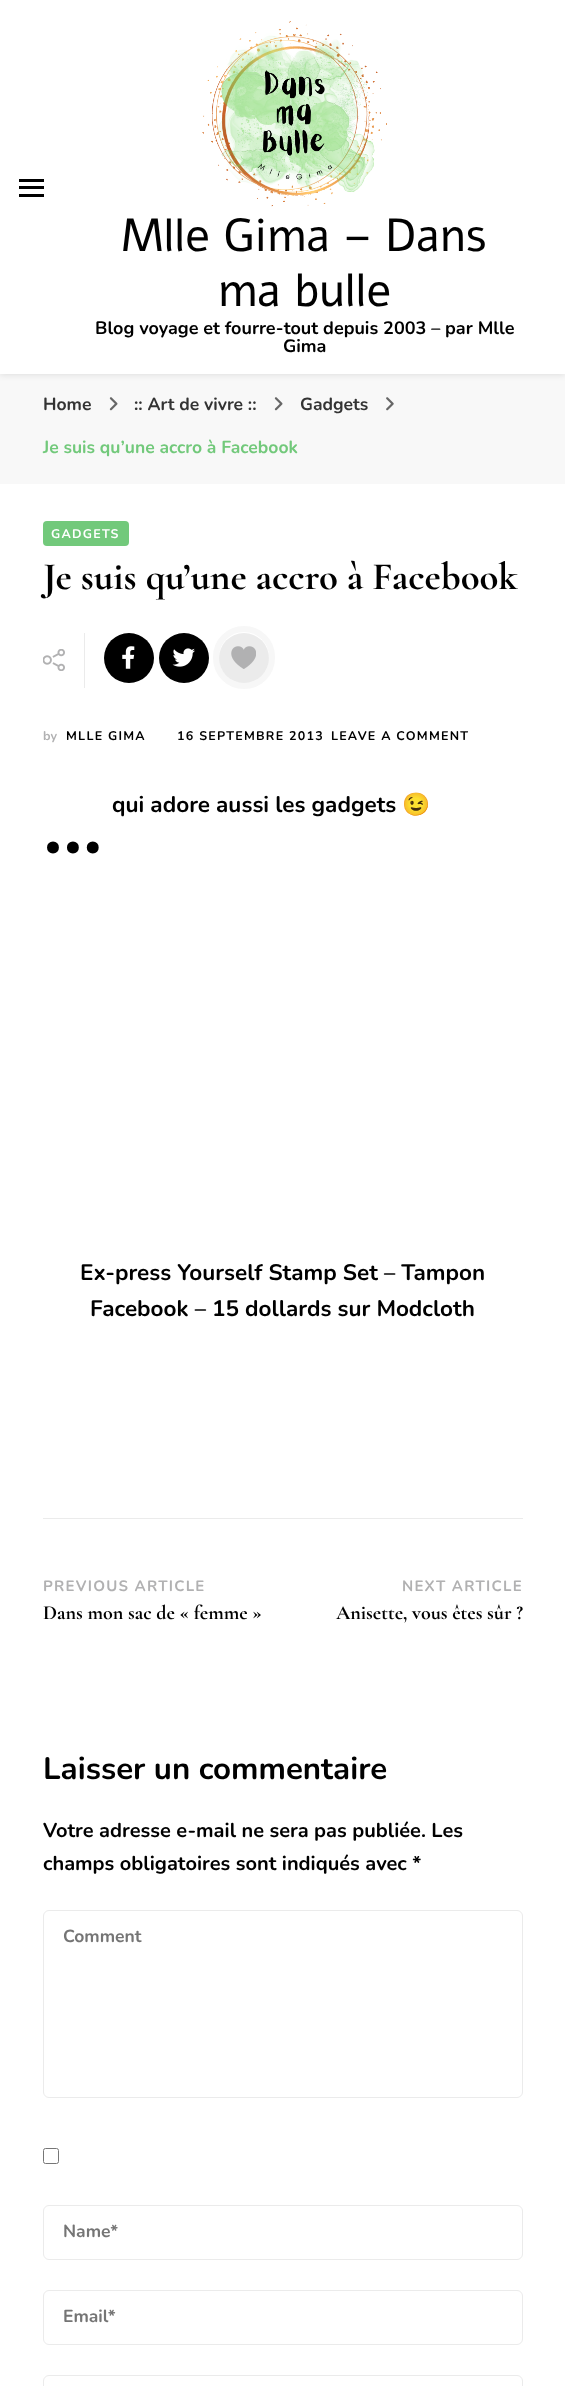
<!DOCTYPE html>
<meta charset="utf-8">
<style>body { margin: 0 } canvas { display: block }</style>
<canvas id="canvas" width="565" height="2386"></canvas>
<script type="module">
  const canvas = document.getElementById("canvas");
  const g = canvas.getContext("2d");
  g.miterLimit = 4;
  g.fontKerning = "normal";
  function drawText(s, x, y, [font, color]) {
    g.font = font;
    g.fillStyle = color;
    g.fillText(s, x, y);
  }
  function fillBox(x, y, w, h, color) {
    g.fillStyle = color;
    g.fillRect(x, y, w, h);
  }
  function fillRounded(x, y, w, h, r, color) {
    g.fillStyle = color;
    g.beginPath();
    g.roundRect(x, y, w, h, r);
    g.fill();
  }
  async function drawPicture(src, x, y, w, h) {
    const img = new Image();
    img.src = src;
    await img.decode();
    g.drawImage(img, x, y, w, h);
  }

  const s1 = ["46.25px Alef", "#000000"];
  const s2 = ["200 18px Nunito", "#000000"];
  const s3 = ["200 17.5px Nunito", "#333333"];
  const s4 = ["200 17.5px Nunito", "#72C97B"];
  const s5 = ["200 12.5px Nunito", "#FFFFFF"];
  const s6 = ["300 38.75px Cormorant Garamond", "#000000"];
  const s7 = ["200 12.5px Nunito", "#B1B1B2"];
  const s8 = ["200 12.5px Nunito", "#000000"];
  const s9 = ["200 22.5px Nunito", "#000000"];
  const s10 = ["22.5px Noto Color Emoji", "#000000"];
  const s11 = ["200 80px Nunito", "#000000"];
  const s12 = ["200 15px Nunito", "#B1B1B2"];
  const s13 = ["300 20px Cormorant Garamond", "#000000"];
  const s14 = ["200 31.25px Nunito", "#000000"];
  const s15 = ["200 20px Nunito", "#000000"];
  const s16 = ["200 17.5px Nunito", "#757575"];

  fillBox(0, 0, 565, 2386, "#F8F8F8");
  g.fillStyle = "rgba(0, 0, 0, 0.1)";
  g.filter = "blur(3px)";
  g.beginPath();
  g.rect(0, 1, 565, 374);
  g.fill();
  g.filter = "none";
  fillBox(0, 0, 565, 374, "#FFFFFF");
  fillBox(19, 179, 25, 3, "#000000");
  fillBox(19, 186, 25, 3, "#000000");
  fillBox(19, 194, 25, 3, "#000000");
  await drawPicture("pic1.png", 202, 21, 185, 186);
  drawText("Mlle Gima – Dans", 121, 251, s1);
  drawText("ma bulle", 218, 306, s1);
  drawText("Blog voyage et fourre-tout depuis 2003 – par Mlle", 95, 334, s2);
  drawText("Gima", 283, 352, s2);
  drawText("Home", 43, 410, s3);
  await drawPicture("pic2.png", 109, 397, 9, 14);
  drawText(":: Art de vivre ::", 134, 410, s3);
  await drawPicture("pic2.png", 274, 397, 9, 14);
  drawText("Gadgets", 300, 410, s3);
  await drawPicture("pic3.png", 386, 397, 8, 14);
  drawText("Je suis qu’une accro à Facebook", 43, 453, s4);
  fillBox(0, 484, 565, 1902, "#FFFFFF");
  fillRounded(43, 521, 86, 25, 4, "#72C97B");
  g.letterSpacing = "1.25px";
  drawText("GADGETS", 51, 538, s5);
  g.letterSpacing = "0px";
  drawText("Je suis qu’une accro à Facebook", 43, 589, s6);
  fillBox(84, 633, 1, 55, "#EBEBEB");
  await drawPicture("pic4.png", 43, 649, 22, 22);
  g.fillStyle = "#000000";
  g.beginPath();
  g.arc(129, 658, 25, 0, Math.PI * 2);
  g.fill();
  await drawPicture("pic5.png", 122, 646, 13, 23);
  g.beginPath();
  g.arc(184, 658, 25, 0, Math.PI * 2);
  g.fill();
  await drawPicture("pic6.png", 172, 648, 23, 19);
  g.beginPath();
  g.roundRect(216, 629, 56, 57, 28);
  g.strokeStyle = "#F7F7F7";
  g.lineWidth = 6;
  g.stroke();
  g.fillStyle = "rgba(0, 0, 0, 0.08)";
  g.beginPath();
  g.arc(244, 658, 25, 0, Math.PI * 2);
  g.fill();
  await drawPicture("pic7.png", 231, 646, 25, 23);
  drawText("by", 43, 740, s7);
  g.letterSpacing = "1.25px";
  drawText("MLLE GIMA", 66, 740, s8);
  drawText("16 SEPTEMBRE 2013", 177, 740, s8);
  drawText("LEAVE A COMMENT", 331, 740, s8);
  g.letterSpacing = "0px";
  drawText("qui adore aussi les gadgets", 112, 812, s9);
  drawText("😉", 402, 812, s10);
  drawText("…", 43, 853, s11);
  drawText("Ex-press Yourself Stamp Set – Tampon", 80, 1280, s9);
  drawText("Facebook – 15 dollards sur Modcloth", 90, 1316, s9);
  fillBox(43, 1518, 480, 1, "#EBEBEB");
  g.letterSpacing = "1.25px";
  drawText("PREVIOUS ARTICLE", 43, 1591, s12);
  g.letterSpacing = "0px";
  drawText("Dans mon sac de « femme »", 43, 1619, s13);
  g.letterSpacing = "1.25px";
  drawText("NEXT ARTICLE", 402, 1591, s12);
  g.letterSpacing = "0px";
  drawText("Anisette, vous êtes sûr ?", 336, 1619, s13);
  drawText("Laisser un commentaire", 43, 1779, s14);
  drawText("Votre adresse e-mail ne sera pas publiée. Les", 43, 1837, s15);
  drawText("champs obligatoires sont indiqués avec *", 43, 1870, s15);
  g.beginPath();
  g.roundRect(43.5, 1910.5, 479, 187, 5.5);
  g.strokeStyle = "#EBEBEB";
  g.lineWidth = 1;
  g.stroke();
  drawText("Comment", 63, 1942, s16);
  g.beginPath();
  g.roundRect(43.5, 2148.5, 15, 15, 2);
  g.strokeStyle = "#767676";
  g.stroke();
  g.beginPath();
  g.roundRect(43.5, 2205.5, 479, 54, 5.5);
  g.strokeStyle = "#EBEBEB";
  g.stroke();
  drawText("Name*", 63, 2237, s16);
  g.beginPath();
  g.roundRect(43.5, 2290.5, 479, 54, 5.5);
  g.stroke();
  drawText("Email*", 63, 2322, s16);
  g.beginPath();
  g.roundRect(43.5, 2375.5, 479, 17, 5.5);
  g.stroke();
</script>
